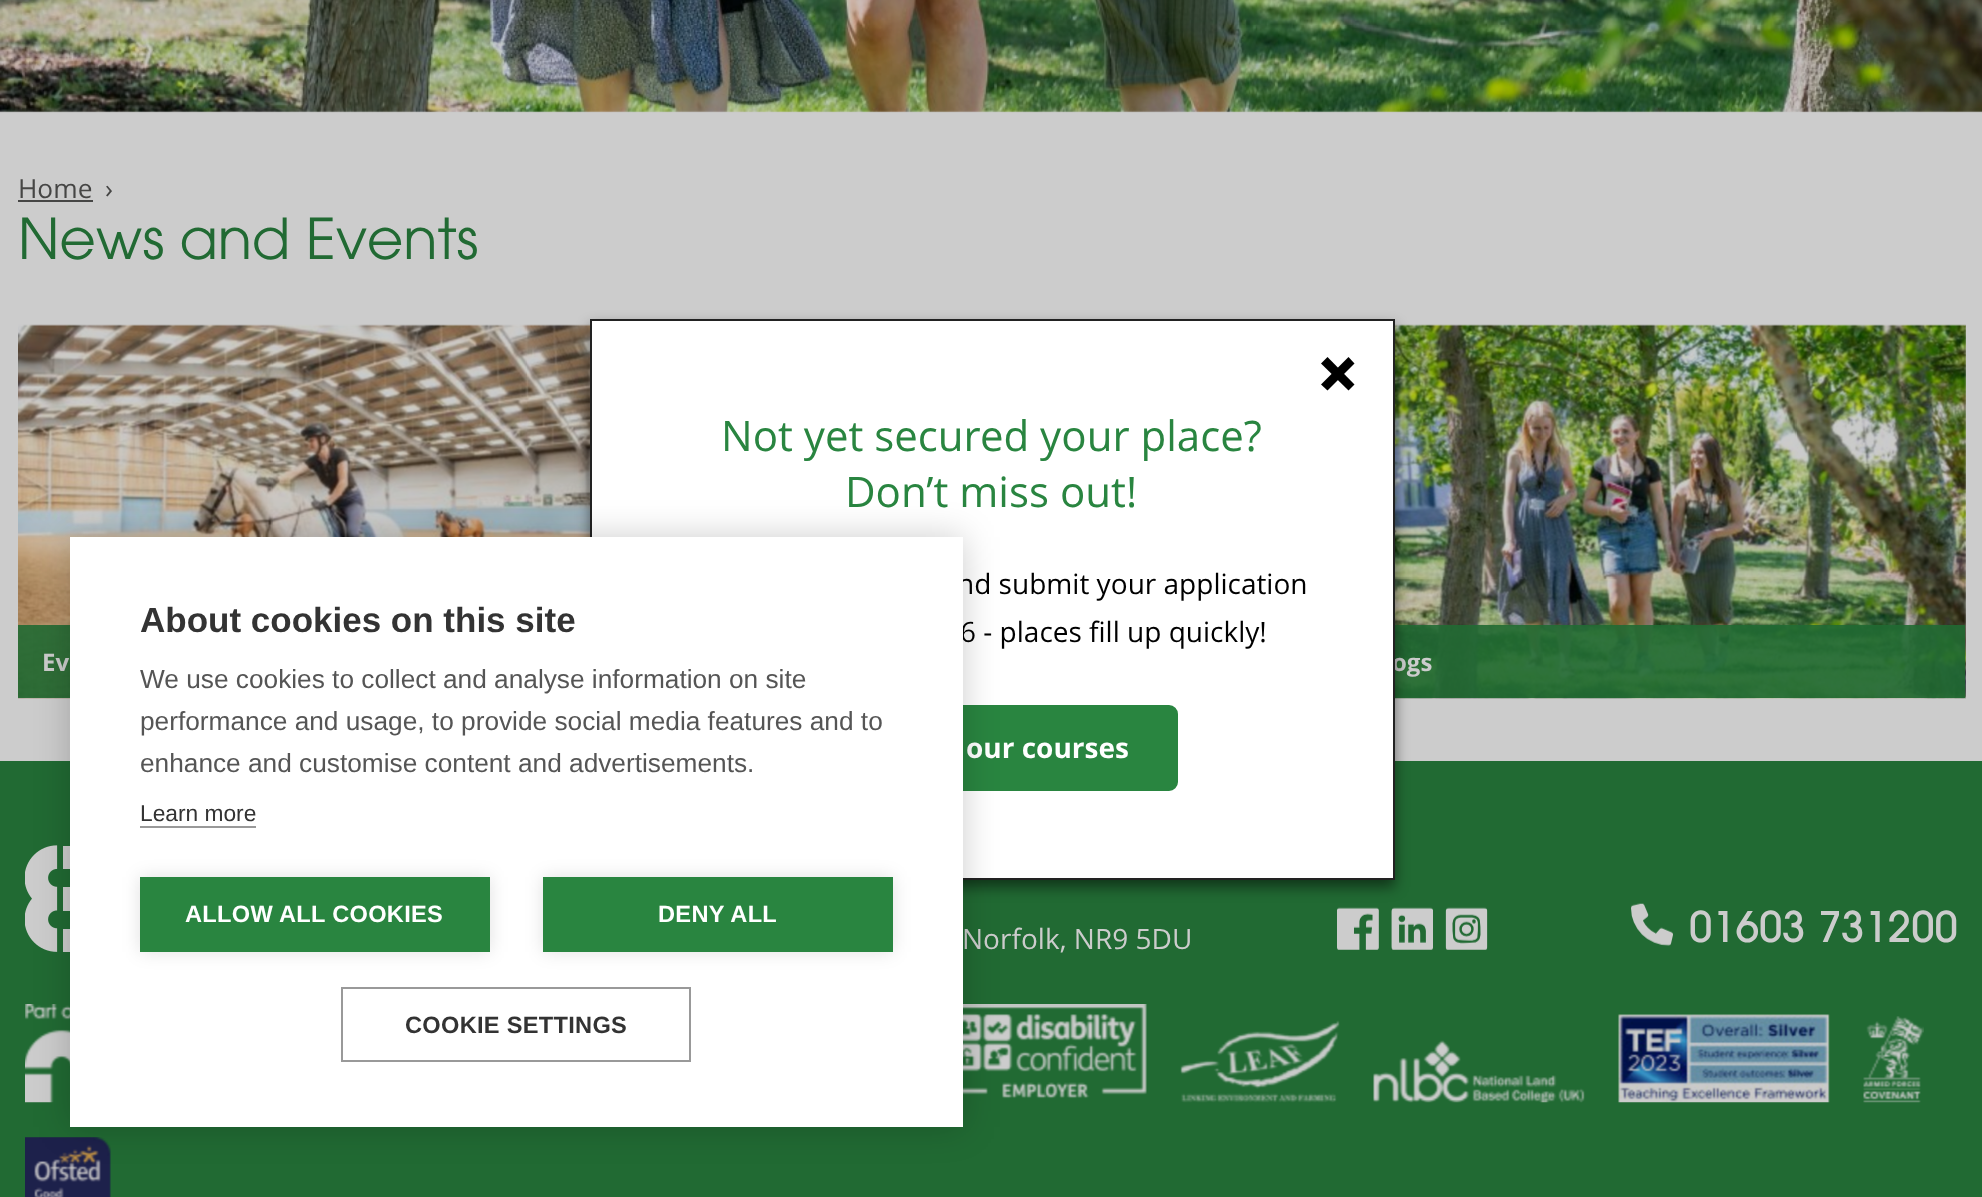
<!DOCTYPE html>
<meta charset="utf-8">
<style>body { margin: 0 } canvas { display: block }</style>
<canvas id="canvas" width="1982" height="1197"></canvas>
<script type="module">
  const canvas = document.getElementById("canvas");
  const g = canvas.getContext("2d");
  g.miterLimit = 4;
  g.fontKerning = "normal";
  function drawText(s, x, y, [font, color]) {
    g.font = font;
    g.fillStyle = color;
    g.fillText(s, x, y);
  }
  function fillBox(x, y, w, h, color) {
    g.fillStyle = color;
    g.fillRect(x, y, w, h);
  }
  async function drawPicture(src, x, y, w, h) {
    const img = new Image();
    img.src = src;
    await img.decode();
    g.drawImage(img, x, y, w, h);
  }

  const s1 = ["26.25px Open Sans", "#464645"];
  const s2 = ["300 56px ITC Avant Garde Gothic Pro", "#216A33"];
  const s3 = ["bold 24px Open Sans", "#CCCCCC"];
  const s4 = ["42px Open Sans", "#298540"];
  const s5 = ["28px Open Sans", "#000000"];
  const s6 = ["bold 28px Open Sans", "#FFFFFF"];
  const s7 = ["28px Open Sans", "#CCCCCC"];
  const s8 = ["500 42px ITC Avant Garde Gothic Pro", "#CCCCCC"];
  const s9 = ["bold 35px Liberation Sans", "#333333"];
  const s10 = ["26.25px Liberation Sans", "#555555"];
  const s11 = ["22.75px Liberation Sans", "#333333"];
  const s12 = ["bold 23.6px Liberation Sans", "#FFFFFF"];
  const s13 = ["bold 23.6px Liberation Sans", "#333333"];

  fillBox(0, 0, 1982, 1197, "#CCCCCC");
  await drawPicture("pic1.png", 0, 0, 1982, 113);
  drawText("Home", 18, 198, s1);
  fillBox(18, 200, 75, 2, "#464645");
  drawText("›", 105, 198, s1);
  drawText("News and Events", 18, 259, s2);
  await drawPicture("pic2.png", 18, 324, 572, 375);
  fillBox(18, 625, 52, 73, "rgba(33, 106, 51, 0.9)");
  drawText("Ev", 42, 671, s3);
  fillBox(1395, 326, 570, 372, "#797979");
  await drawPicture("pic3.png", 1395, 324, 571, 375);
  fillBox(1395, 625, 570, 73, "rgba(33, 106, 51, 0.9)");
  drawText("ogs", 1392, 671, s3);
  fillBox(0, 761, 1982, 436, "#216A33");
  await drawPicture("pic5.png", 1337, 907, 42, 43);
  await drawPicture("pic6.png", 1391, 907, 42, 43);
  g.fillStyle = "rgba(0, 0, 0, 0.5)";
  g.filter = "blur(7px)";
  g.beginPath();
  g.rect(590, 326, 805, 561);
  g.fill();
  g.filter = "none";
  g.fillStyle = "#FFFFFF";
  g.beginPath();
  g.rect(591, 320, 803, 559);
  g.fill();
  g.strokeStyle = "#222222";
  g.lineWidth = 2;
  g.stroke();
  g.fillStyle = "#000000";
  g.beginPath();
  g.moveTo(1321, 363.5);
  g.lineTo(1327.5, 357);
  g.lineTo(1354.5, 384.5);
  g.lineTo(1348.5, 390.5);
  g.closePath();
  g.fill();
  g.beginPath();
  g.moveTo(1348.5, 357);
  g.lineTo(1354.5, 363.5);
  g.lineTo(1327.5, 390.5);
  g.lineTo(1321, 384.5);
  g.closePath();
  g.fill();
  drawText("Not yet secured your place?", 721, 451, s4);
  drawText("Don’t miss out!", 845, 507, s4);
  drawText("nd submit your application", 957, 594, s5);
  drawText("6 - places fill up quickly!", 960, 642, s5);
  g.fillStyle = "#298540";
  g.beginPath();
  g.roundRect(806, 706, 371, 84, 8);
  g.fill();
  g.strokeStyle = "#298540";
  g.stroke();
  drawText("our courses", 966, 758, s6);
  await drawPicture("pic4.png", 25, 845, 45, 107);
  drawText("Norfolk, NR9 5DU", 962, 949, s7);
  await drawPicture("pic7.png", 1445, 907, 43, 43);
  await drawPicture("pic8.png", 1631, 903, 42, 43);
  drawText("01603 731200", 1689, 942, s8);
  await drawPicture("pic9.png", 25, 1004, 45, 99);
  await drawPicture("pic10.png", 963, 1004, 184, 95);
  await drawPicture("pic11.png", 1180, 1020, 160, 83);
  await drawPicture("pic12.png", 1373, 1040, 212, 63);
  await drawPicture("pic13.png", 1618, 1014, 212, 89);
  await drawPicture("pic14.png", 1863, 1016, 61, 87);
  await drawPicture("pic15.png", 25, 1137, 86, 60);
  g.fillStyle = "rgba(0, 0, 0, 0.2)";
  g.filter = "blur(17.5px)";
  g.beginPath();
  g.rect(70, 537, 893, 590);
  g.fill();
  g.filter = "none";
  fillBox(70, 537, 893, 590, "#FFFFFF");
  drawText("About cookies on this site", 140, 632, s9);
  drawText("We use cookies to collect and analyse information on site", 140, 688, s10);
  drawText("performance and usage, to provide social media features and to", 140, 730, s10);
  drawText("enhance and customise content and advertisements.", 140, 772, s10);
  drawText("Learn more", 140, 821, s11);
  fillBox(140, 826, 116, 2, "#999999");
  g.fillStyle = "rgba(0, 0, 0, 0.12)";
  g.filter = "blur(9px)";
  g.beginPath();
  g.rect(140, 877, 350, 75);
  g.fill();
  g.filter = "none";
  fillBox(140, 877, 350, 75, "#298540");
  g.letterSpacing = "0.3px";
  drawText("ALLOW ALL COOKIES", 185, 922, s12);
  g.fillStyle = "rgba(0, 0, 0, 0.12)";
  g.filter = "blur(9px)";
  g.beginPath();
  g.rect(543, 877, 350, 75);
  g.fill();
  g.filter = "none";
  fillBox(543, 877, 350, 75, "#298540");
  drawText("DENY ALL", 658, 922, s12);
  g.strokeStyle = "#999999";
  g.strokeRect(342, 988, 348, 73);
  drawText("COOKIE SETTINGS", 405, 1033, s13);
</script>
